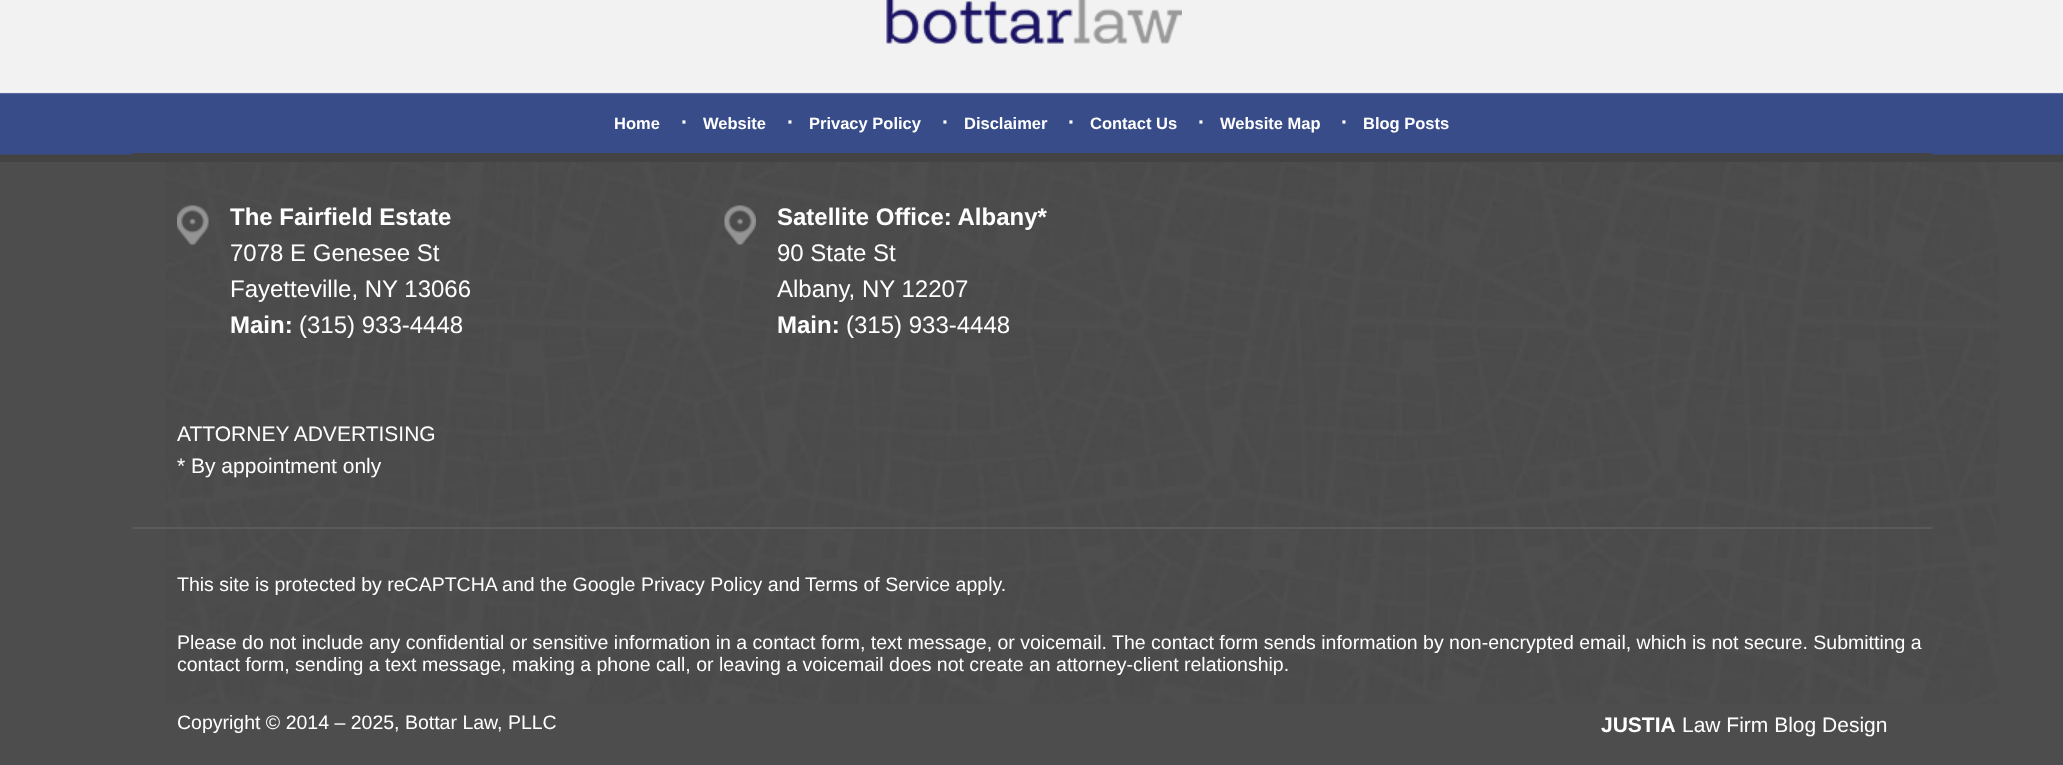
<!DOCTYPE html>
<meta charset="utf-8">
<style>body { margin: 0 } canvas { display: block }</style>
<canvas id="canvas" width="2063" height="765"></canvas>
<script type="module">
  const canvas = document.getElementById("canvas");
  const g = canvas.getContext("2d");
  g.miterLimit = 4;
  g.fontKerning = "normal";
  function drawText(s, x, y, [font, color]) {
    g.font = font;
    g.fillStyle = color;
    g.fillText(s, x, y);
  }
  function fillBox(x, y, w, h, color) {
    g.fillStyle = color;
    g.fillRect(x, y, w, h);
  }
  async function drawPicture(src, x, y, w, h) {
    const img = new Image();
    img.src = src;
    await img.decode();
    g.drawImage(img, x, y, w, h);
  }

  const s1 = ["bold 16.5px Liberation Sans", "#FFFFFF"];
  const s2 = ["bold 21px Liberation Sans", "#FFFFFF"];
  const s3 = ["bold 24px Liberation Sans", "#FFFFFF"];
  const s4 = ["24px Liberation Sans", "#FFFFFF"];
  const s5 = ["21px Liberation Sans", "#FFFFFF"];
  const s6 = ["19.5px Liberation Sans", "#FFFFFF"];

  fillBox(0, 0, 2063, 765, "#4D4D4D");
  await drawPicture("pic1.png", 166, 162, 1833, 542);
  await drawPicture("pic2.png", 0, 0, 2063, 162);
  await drawPicture("pic3.png", 886, 0, 296, 44);
  fillBox(132, 153, 1800, 2, "#434343");
  drawText("Home", 614, 129, s1);
  drawText("·", 681, 129, s2);
  drawText("Website", 703, 129, s1);
  drawText("·", 787, 129, s2);
  drawText("Privacy Policy", 809, 129, s1);
  drawText("·", 942, 129, s2);
  drawText("Disclaimer", 964, 129, s1);
  drawText("·", 1068, 129, s2);
  drawText("Contact Us", 1090, 129, s1);
  drawText("·", 1198, 129, s2);
  drawText("Website Map", 1220, 129, s1);
  drawText("·", 1341, 129, s2);
  drawText("Blog Posts", 1363, 129, s1);
  await drawPicture("pic4.png", 177, 205, 32, 40);
  drawText("The Fairfield Estate", 230, 225, s3);
  drawText("7078 E Genesee St", 230, 261, s4);
  drawText("Fayetteville, NY 13066", 230, 297, s4);
  drawText("Main:", 230, 333, s3);
  drawText("(315) 933-4448", 299, 333, s4);
  await drawPicture("pic5.png", 724, 205, 32, 40);
  drawText("Satellite Office: Albany*", 777, 225, s3);
  drawText("90 State St", 777, 261, s4);
  drawText("Albany, NY 12207", 777, 297, s4);
  drawText("Main:", 777, 333, s3);
  drawText("(315) 933-4448", 846, 333, s4);
  fillBox(132, 527, 1800, 2, "#5A5A5A");
  drawText("ATTORNEY ADVERTISING", 177, 441, s5);
  drawText("* By appointment only", 177, 473, s5);
  drawText("This site is protected by reCAPTCHA and the Google Privacy Policy and", 177, 591, s6);
  drawText("Terms of Service apply.", 805, 591, s6);
  drawText("Please do not include any confidential or sensitive information in a contact form, text message, or voicemail. The contact form sends information by non-encrypted email, which is not secure. Submitting a", 177, 649, s6);
  drawText("contact form, sending a text message, making a phone call, or leaving a voicemail does not create an attorney-client relationship.", 177, 671, s6);
  drawText("Copyright © 2014 – 2025, Bottar Law, PLLC", 177, 729, s6);
  drawText("JUSTIA", 1601, 732, s2);
  drawText("Law Firm Blog Design", 1682, 732, s5);
</script>
